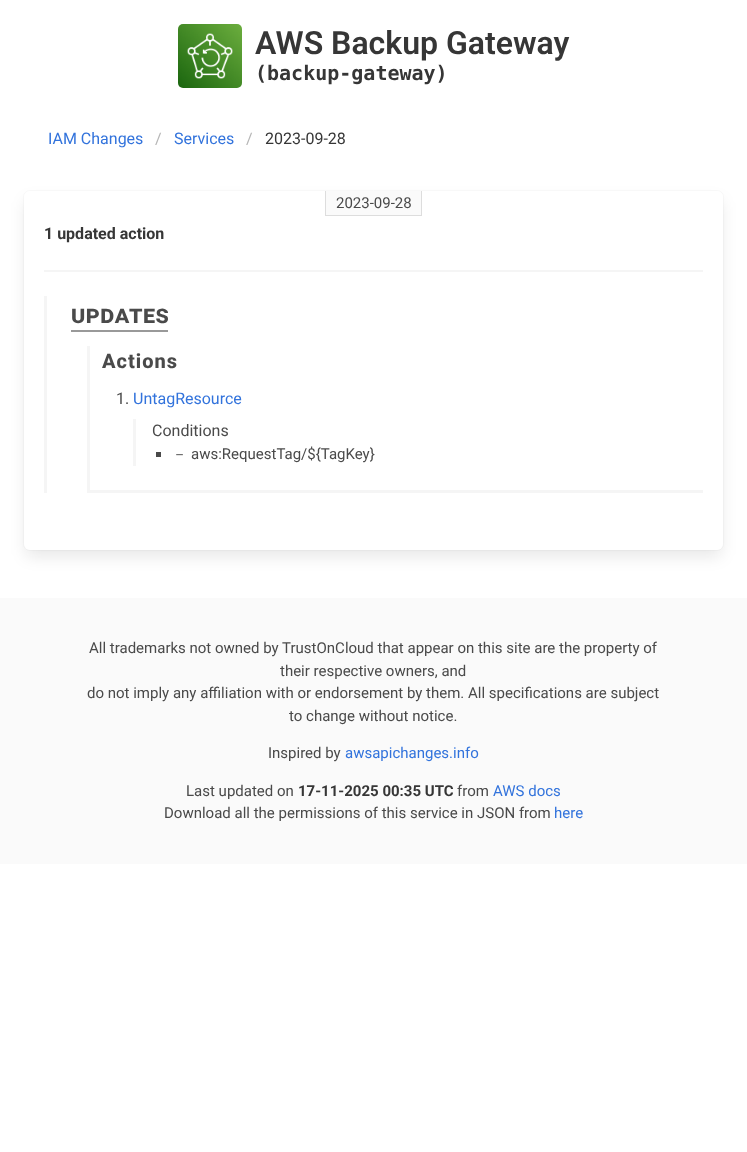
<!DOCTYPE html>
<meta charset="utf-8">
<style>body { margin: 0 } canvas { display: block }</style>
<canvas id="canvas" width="747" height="1152"></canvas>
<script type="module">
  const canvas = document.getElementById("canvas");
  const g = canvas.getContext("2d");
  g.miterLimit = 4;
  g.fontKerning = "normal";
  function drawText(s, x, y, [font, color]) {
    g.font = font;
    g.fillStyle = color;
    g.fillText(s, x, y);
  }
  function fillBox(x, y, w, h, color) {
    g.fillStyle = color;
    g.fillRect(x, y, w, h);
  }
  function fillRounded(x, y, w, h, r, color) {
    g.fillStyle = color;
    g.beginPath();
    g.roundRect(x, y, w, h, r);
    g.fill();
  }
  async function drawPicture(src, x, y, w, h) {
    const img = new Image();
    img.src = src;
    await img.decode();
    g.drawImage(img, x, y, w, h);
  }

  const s1 = ["600 32px Roboto", "#363636"];
  const s2 = ["bold 20px DejaVu Sans Mono", "#363636"];
  const s3 = ["16px Roboto", "#3273DC"];
  const s4 = ["16px Roboto", "#B5B5B5"];
  const s5 = ["16px Roboto", "#363636"];
  const s6 = ["15px Roboto", "#4A4A4A"];
  const s7 = ["bold 16px Roboto", "#363636"];
  const s8 = ["bold 25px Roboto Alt", "#4A4A4A"];
  const s9 = ["800 20px Roboto", "#4A4A4A"];
  const s10 = ["16px Roboto", "#4A4A4A"];
  const s11 = ["500 15px WenQuanYi Zen Hei", "#4A4A4A"];
  const s12 = ["15px Roboto", "#3273DC"];
  const s13 = ["bold 15px Roboto", "#363636"];

  fillBox(0, 0, 747, 1152, "#FFFFFF");
  await drawPicture("pic1.png", 178, 24, 64, 64);
  drawText("AWS Backup Gateway", 255, 54, s1);
  drawText("(backup-gateway)", 255, 80, s2);
  drawText("IAM Changes", 48, 144, s3);
  drawText("/", 155, 144, s4);
  drawText("Services", 174, 144, s3);
  drawText("/", 246, 144, s4);
  drawText("2023-09-28", 265, 144, s5);
  g.beginPath();
  g.roundRect(23.5, 190.5, 700, 360, 6.5);
  g.strokeStyle = "#FAFAFA";
  g.stroke();
  g.fillStyle = "rgba(10, 10, 10, 0.1)";
  g.filter = "blur(8px)";
  g.beginPath();
  g.roundRect(26, 201, 695, 355, 4);
  g.fill();
  g.filter = "none";
  fillRounded(24, 191, 699, 359, 6, "#FFFFFF");
  fillBox(326, 191, 95, 24, "#FAFAFA");
  drawText("2023-09-28", 336, 208, s6);
  fillBox(421, 191, 1, 25, "#DDDDDD");
  fillBox(325, 215, 97, 1, "#DDDDDD");
  fillBox(325, 191, 1, 25, "#DDDDDD");
  drawText("1 updated action", 44, 239, s7);
  fillBox(44, 270, 659, 2, "#F5F5F5");
  fillBox(44, 296, 3, 197, "#F5F5F5");
  g.letterSpacing = "0.5px";
  drawText("Updates", 71, 323, s8);
  fillBox(71, 330, 97, 2, "#999999");
  fillBox(87, 490, 616, 3, "#F5F5F5");
  fillBox(87, 346, 3, 147, "#F5F5F5");
  g.letterSpacing = "1px";
  drawText("Actions", 102, 368, s9);
  g.letterSpacing = "0px";
  drawText("1.", 116, 404, s10);
  drawText("UntagResource", 133, 404, s3);
  fillBox(133, 419, 3, 47, "#F5F5F5");
  drawText("Conditions", 152, 436, s10);
  fillBox(156, 452, 5, 5, "#4A4A4A");
  drawText("－", 172, 459, s11);
  drawText("aws:RequestTag/${TagKey}", 191, 459, s6);
  fillBox(0, 598, 747, 266, "#FAFAFA");
  drawText("All trademarks not owned by TrustOnCloud that appear on this site are the property of", 89, 653, s6);
  drawText("their respective owners, and", 280, 676, s6);
  drawText("do not imply any affiliation with or endorsement by them. All specifications are subject", 87, 698, s6);
  drawText("to change without notice.", 289, 721, s6);
  drawText("Inspired by", 268, 758, s6);
  drawText("awsapichanges.info", 345, 758, s12);
  drawText("Last updated on", 186, 796, s6);
  drawText("17-11-2025 00:35 UTC", 298, 796, s13);
  drawText("from", 457, 796, s6);
  drawText("AWS docs", 493, 796, s12);
  drawText("Download all the permissions of this service in JSON from", 164, 818, s6);
  drawText("here", 554, 818, s12);
</script>
